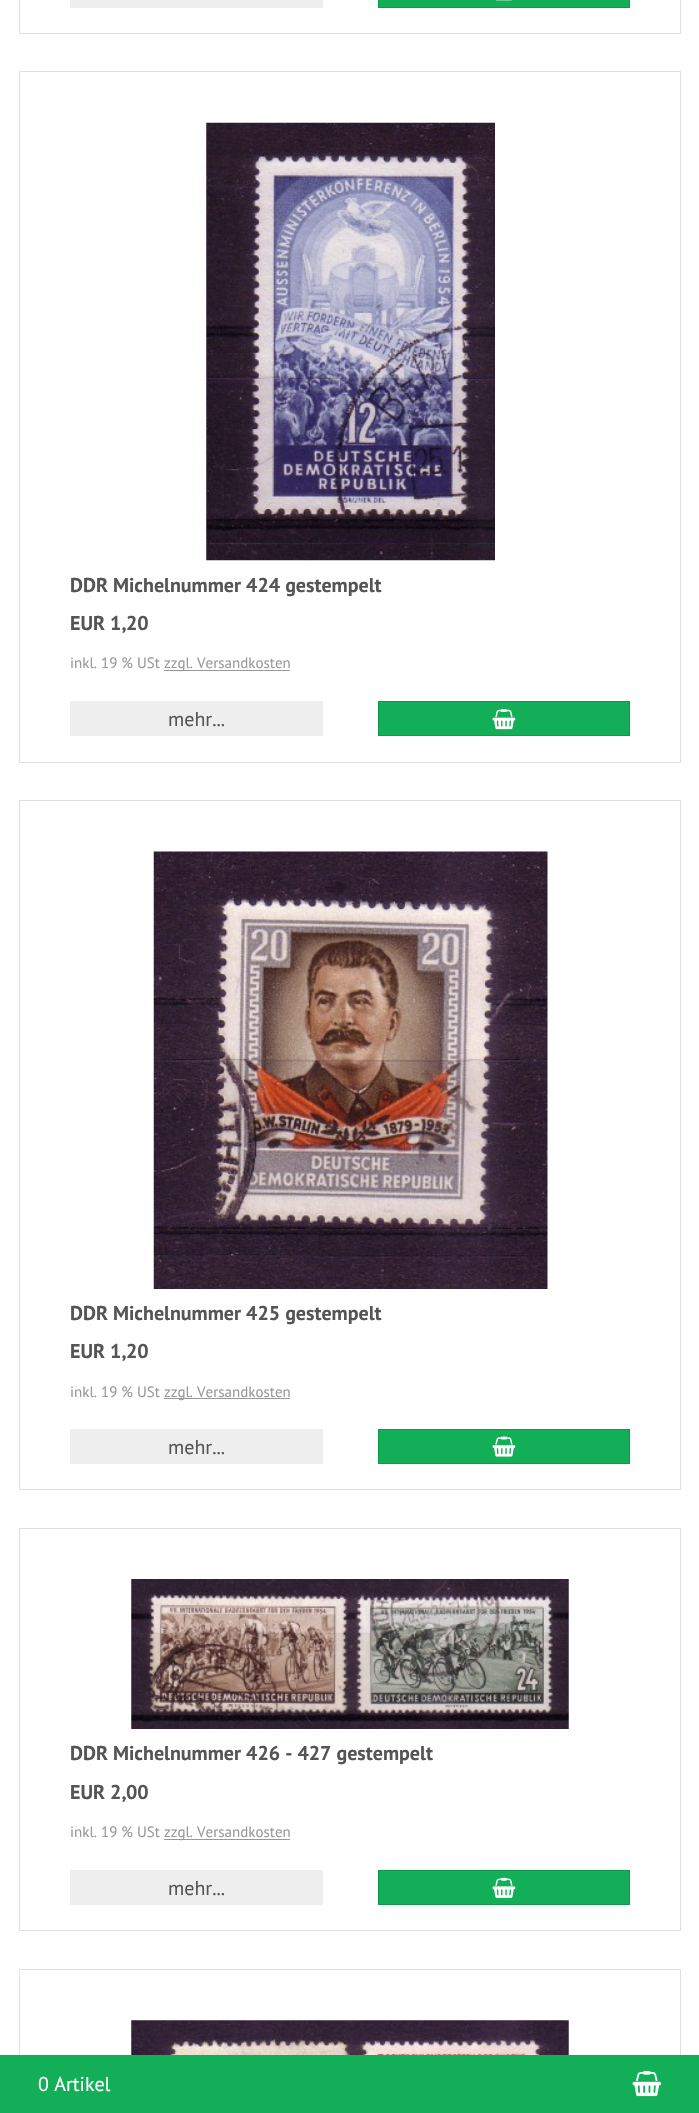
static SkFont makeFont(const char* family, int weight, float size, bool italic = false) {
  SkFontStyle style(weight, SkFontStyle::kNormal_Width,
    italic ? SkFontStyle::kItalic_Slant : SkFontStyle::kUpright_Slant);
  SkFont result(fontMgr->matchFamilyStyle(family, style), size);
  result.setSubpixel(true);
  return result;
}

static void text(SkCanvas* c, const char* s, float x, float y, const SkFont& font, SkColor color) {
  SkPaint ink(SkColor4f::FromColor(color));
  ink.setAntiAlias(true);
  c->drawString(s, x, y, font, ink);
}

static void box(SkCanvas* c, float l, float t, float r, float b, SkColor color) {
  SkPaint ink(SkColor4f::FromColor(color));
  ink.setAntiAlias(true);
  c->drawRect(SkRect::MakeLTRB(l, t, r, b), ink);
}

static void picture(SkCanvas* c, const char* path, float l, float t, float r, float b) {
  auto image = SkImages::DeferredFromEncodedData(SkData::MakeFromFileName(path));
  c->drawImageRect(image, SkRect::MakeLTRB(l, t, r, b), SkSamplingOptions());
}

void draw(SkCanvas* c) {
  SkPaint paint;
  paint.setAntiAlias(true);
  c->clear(0xffffffff);
  paint.setStyle(SkPaint::kStroke_Style);
  paint.setStrokeWidth(1);
  paint.setColor(0xffe0e0e0);
  c->drawRect(SkRect::MakeLTRB(19.5f, -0.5f, 680.5f, 33.5f), paint);
  box(c, 70, 0, 323, 8, 0xffeeeeee);
  paint.setStyle(SkPaint::kFill_Style);
  paint.setColor(0xff13ae58);
  c->drawRect(SkRect::MakeLTRB(378.5f, -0.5f, 629.5f, 7.5f), paint);
  paint.setStyle(SkPaint::kStroke_Style);
  paint.setColor(0xff10974c);
  c->drawRect(SkRect::MakeLTRB(378.5f, -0.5f, 629.5f, 7.5f), paint);
  picture(c, "img_01.png", 496, 0, 512, 1);
  paint.setColor(0xffe0e0e0);
  c->drawRect(SkRect::MakeLTRB(19.5f, 71.5f, 680.5f, 762.5f), paint);
  picture(c, "img_02.png", 206, 122, 495, 561);
  SkFont face1 = makeFont("PT Sans", 700, 20);
  text(c, "DDR Michelnummer 424 gestempelt", 70, 592, face1, 0xff555555);
  text(c, "EUR 1,20", 70, 630, face1, 0xff555555);
  SkFont face2 = makeFont("PT Sans", 400, 15);
  text(c, "inkl. 19 % USt", 70, 668, face2, 0xff999999);
  box(c, 164, 670, 290, 671, 0xff999999);
  text(c, "zzgl. Versandkosten", 164, 668, face2, 0xff999999);
  box(c, 70, 701, 323, 736, 0xffeeeeee);
  SkFont face3 = makeFont("PT Sans", 400, 20);
  text(c, "mehr...", 168, 726, face3, 0xff555555);
  paint.setStyle(SkPaint::kFill_Style);
  paint.setColor(0xff13ae58);
  c->drawRect(SkRect::MakeLTRB(378.5f, 701.5f, 629.5f, 735.5f), paint);
  paint.setStyle(SkPaint::kStroke_Style);
  paint.setColor(0xff10974c);
  c->drawRect(SkRect::MakeLTRB(378.5f, 701.5f, 629.5f, 735.5f), paint);
  picture(c, "img_03.png", 492, 709, 516, 730);
  paint.setColor(0xffe0e0e0);
  c->drawRect(SkRect::MakeLTRB(19.5f, 800.5f, 680.5f, 1489.5f), paint);
  picture(c, "img_04.png", 153, 851, 548, 1289);
  text(c, "DDR Michelnummer 425 gestempelt", 70, 1320, face1, 0xff555555);
  text(c, "EUR 1,20", 70, 1358, face1, 0xff555555);
  text(c, "inkl. 19 % USt", 70, 1397, face2, 0xff999999);
  box(c, 164, 1398, 290, 1399, 0xff999999);
  text(c, "zzgl. Versandkosten", 164, 1397, face2, 0xff999999);
  box(c, 70, 1429, 323, 1464, 0xffeeeeee);
  text(c, "mehr...", 168, 1454, face3, 0xff555555);
  paint.setStyle(SkPaint::kFill_Style);
  paint.setColor(0xff13ae58);
  c->drawRect(SkRect::MakeLTRB(378.5f, 1429.5f, 629.5f, 1463.5f), paint);
  paint.setStyle(SkPaint::kStroke_Style);
  paint.setColor(0xff10974c);
  c->drawRect(SkRect::MakeLTRB(378.5f, 1429.5f, 629.5f, 1463.5f), paint);
  picture(c, "img_05.png", 492, 1436, 516, 1457);
  paint.setColor(0xffe0e0e0);
  c->drawRect(SkRect::MakeLTRB(19.5f, 1528.5f, 680.5f, 1930.5f), paint);
  picture(c, "img_06.png", 131, 1579, 569, 1729);
  text(c, "DDR Michelnummer 426 - 427 gestempelt", 70, 1760, face1, 0xff555555);
  text(c, "EUR 2,00", 70, 1799, face1, 0xff555555);
  text(c, "inkl. 19 % USt", 70, 1837, face2, 0xff999999);
  box(c, 164, 1839, 290, 1840, 0xff999999);
  text(c, "zzgl. Versandkosten", 164, 1837, face2, 0xff999999);
  box(c, 70, 1870, 323, 1905, 0xffeeeeee);
  text(c, "mehr...", 168, 1895, face3, 0xff555555);
  paint.setStyle(SkPaint::kFill_Style);
  paint.setColor(0xff13ae58);
  c->drawRect(SkRect::MakeLTRB(378.5f, 1870.5f, 629.5f, 1904.5f), paint);
  paint.setStyle(SkPaint::kStroke_Style);
  paint.setColor(0xff10974c);
  c->drawRect(SkRect::MakeLTRB(378.5f, 1870.5f, 629.5f, 1904.5f), paint);
  picture(c, "img_07.png", 492, 1877, 516, 1898);
  paint.setColor(0xffe0e0e0);
  c->drawRect(SkRect::MakeLTRB(19.5f, 1969.5f, 680.5f, 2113.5f), paint);
  picture(c, "img_08.png", 131, 2020, 569, 2055);
  box(c, 0, 2055, 699, 2113, 0xff13ae58);
  text(c, "0 Artikel", 38, 2091, face3, 0xffffffff);
  picture(c, "img_09.png", 632, 2071, 662, 2097);
}
